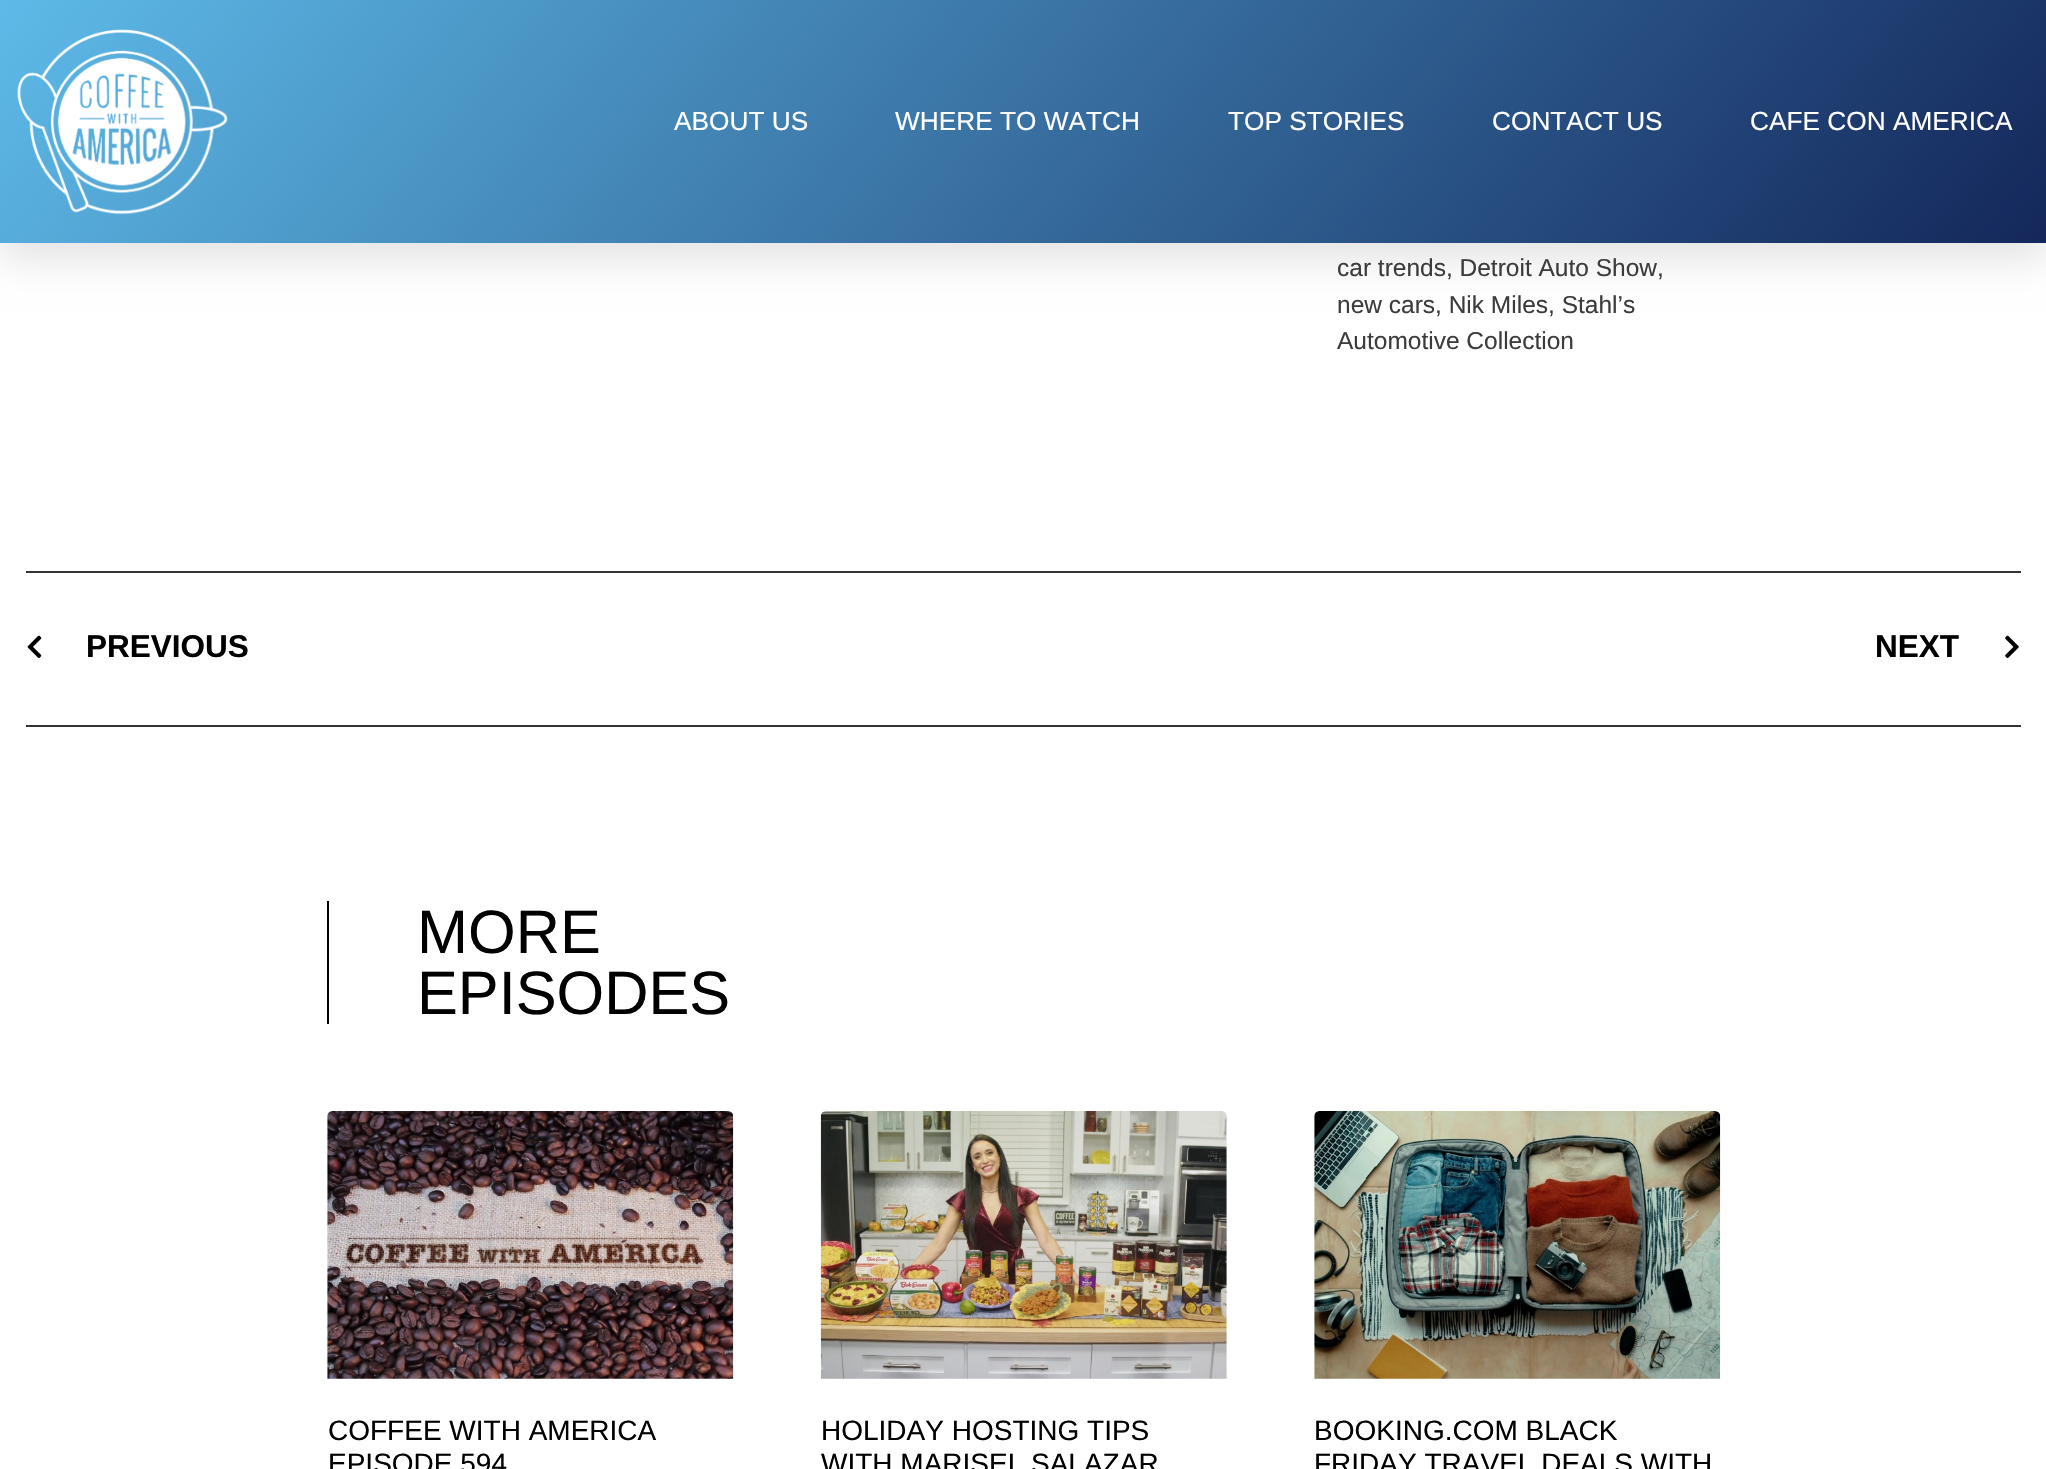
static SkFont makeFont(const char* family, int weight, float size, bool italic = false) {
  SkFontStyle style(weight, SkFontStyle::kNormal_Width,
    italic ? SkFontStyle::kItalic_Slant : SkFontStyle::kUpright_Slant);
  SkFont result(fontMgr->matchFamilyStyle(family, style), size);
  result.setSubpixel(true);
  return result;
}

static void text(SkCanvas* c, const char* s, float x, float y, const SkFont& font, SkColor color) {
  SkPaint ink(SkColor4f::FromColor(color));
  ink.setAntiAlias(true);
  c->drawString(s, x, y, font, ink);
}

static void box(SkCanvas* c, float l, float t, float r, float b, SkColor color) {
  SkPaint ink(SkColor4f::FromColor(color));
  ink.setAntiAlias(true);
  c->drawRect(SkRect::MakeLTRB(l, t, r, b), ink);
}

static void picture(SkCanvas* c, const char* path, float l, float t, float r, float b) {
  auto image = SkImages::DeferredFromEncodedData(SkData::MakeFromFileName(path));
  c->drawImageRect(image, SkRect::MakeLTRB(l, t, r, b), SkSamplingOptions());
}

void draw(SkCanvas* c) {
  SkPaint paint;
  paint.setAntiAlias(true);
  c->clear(0xffffffff);
  paint.setColor(0x1a000000);
  paint.setMaskFilter(SkMaskFilter::MakeBlur(kNormal_SkBlurStyle, 17.5f));
  c->drawRect(SkRect::MakeLTRB(0, 18, 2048, 261), paint);
  paint.setMaskFilter(nullptr);
  {
    const SkColor colors[] = {0xff5dbae8, 0xff14275b};
    const float stops[] = {0, 1};
    const SkPoint ends[] = {{363, -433}, {1684, 676}};
    paint.setShader(SkGradientShader::MakeLinear(ends, colors, stops, 2, SkTileMode::kClamp));
    paint.setAlpha(255);
  }
  c->drawRect(SkRect::MakeLTRB(0, 0, 2046, 243), paint);
  picture(c, "img_01.png", 17, 29, 228, 215);
  SkFont face1 = makeFont("Liberation Sans", 400, 26.25f);
  text(c, "ABOUT US", 674, 130, face1, 0xffffffff);
  text(c, "WHERE TO WATCH", 895, 130, face1, 0xffffffff);
  text(c, "TOP STORIES", 1228, 130, face1, 0xffffffff);
  text(c, "CONTACT US", 1492, 130, face1, 0xffffffff);
  text(c, "CAFE CON AMERICA", 1750, 130, face1, 0xffffffff);
  SkFont face2 = makeFont("Liberation Sans", 400, 24.5f);
  text(c, "car trends, Detroit Auto Show,", 1337, 276, face2, 0xff3c3c3c);
  text(c, "new cars, Nik Miles, Stahl’s", 1337, 313, face2, 0xff3c3c3c);
  text(c, "Automotive Collection", 1337, 349, face2, 0xff3c3c3c);
  box(c, 26, 571, 2021, 573, 0xff333333);
  box(c, 26, 725, 2021, 727, 0xff333333);
  picture(c, "img_02.png", 27, 635, 42, 658);
  SkFont face3 = makeFont("Liberation Sans", 700, 31.5f);
  text(c, "PREVIOUS", 86, 657, face3, 0xff000000);
  text(c, "NEXT", 1875, 657, face3, 0xff000000);
  picture(c, "img_03.png", 2005, 635, 2019, 658);
  box(c, 327, 901, 329, 1024, 0xff000000);
  SkFont face4 = makeFont("Liberation Sans", 400, 61.25f);
  text(c, "MORE", 417, 953, face4, 0xff000000);
  text(c, "EPISODES", 417, 1014, face4, 0xff000000);
  picture(c, "img_04.png", 327, 1111, 734, 1379);
  SkFont face5 = makeFont("Liberation Sans", 400, 28);
  text(c, "COFFEE WITH AMERICA", 328, 1440, face5, 0xff000000);
  text(c, "EPISODE 594", 328, 1473, face5, 0xff000000);
  picture(c, "img_05.png", 820, 1111, 1227, 1379);
  text(c, "HOLIDAY HOSTING TIPS", 821, 1440, face5, 0xff000000);
  text(c, "WITH MARISEL SALAZAR", 821, 1473, face5, 0xff000000);
  picture(c, "img_06.png", 1314, 1111, 1721, 1379);
  text(c, "BOOKING.COM BLACK", 1314, 1440, face5, 0xff000000);
  text(c, "FRIDAY TRAVEL DEALS WITH", 1314, 1473, face5, 0xff000000);
}
